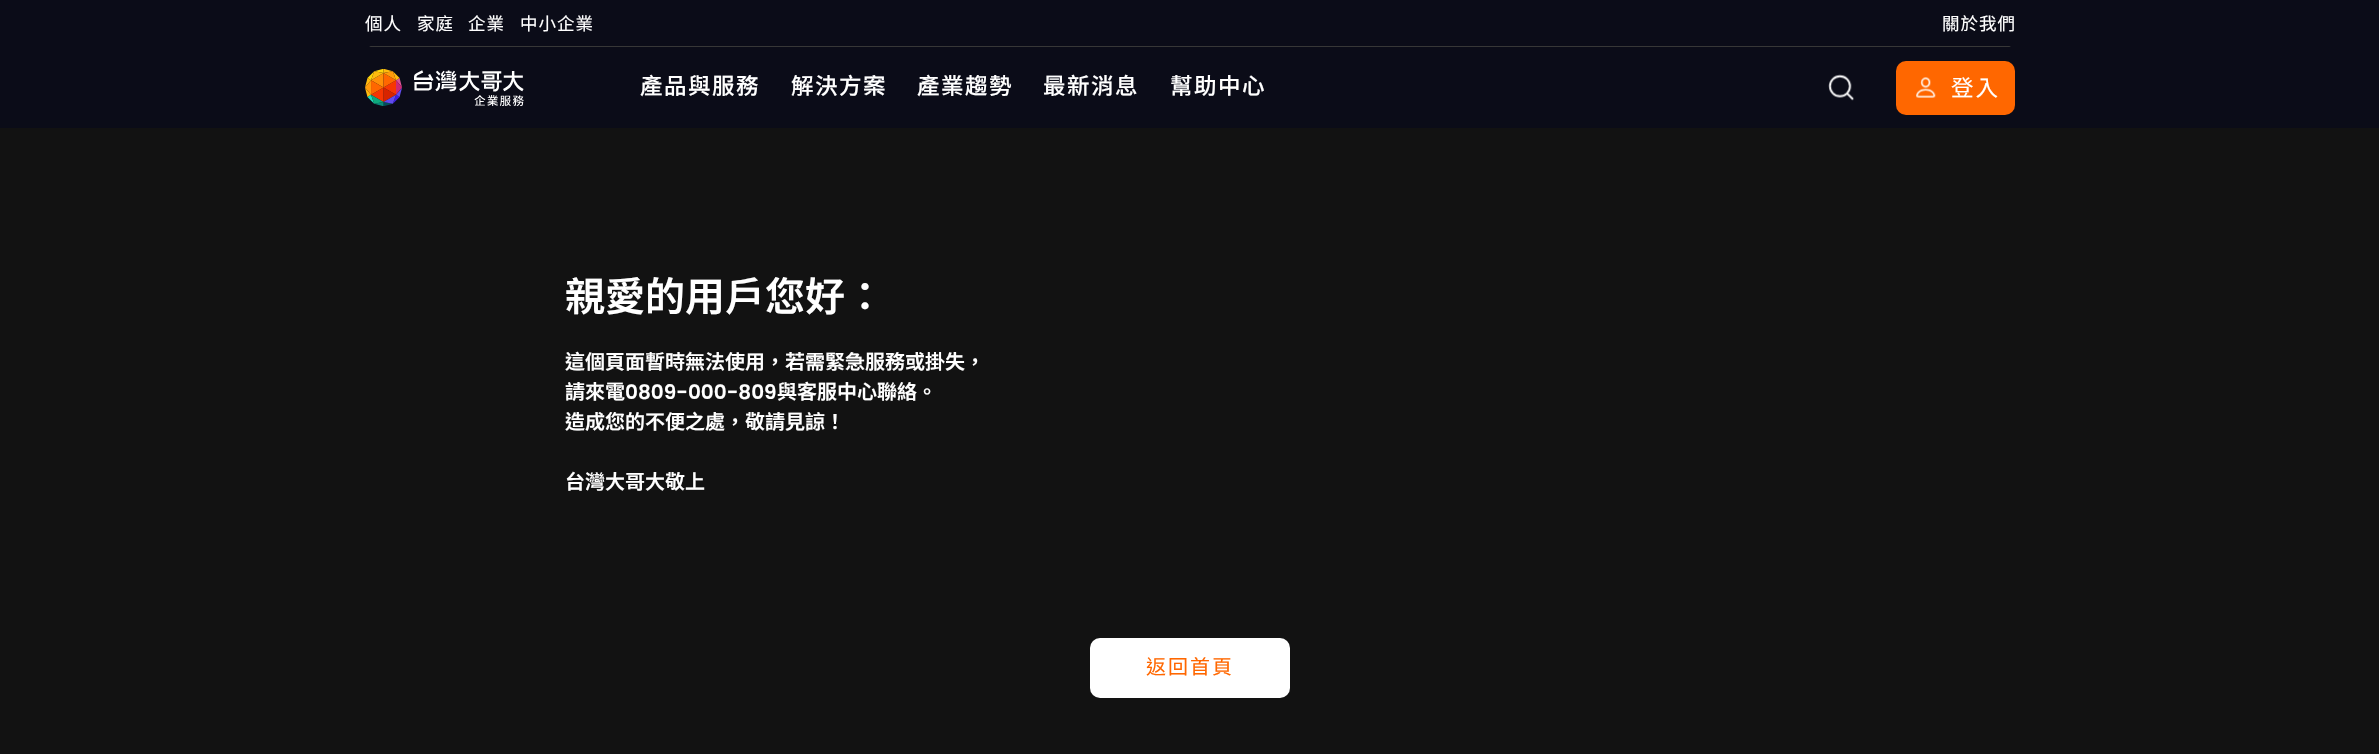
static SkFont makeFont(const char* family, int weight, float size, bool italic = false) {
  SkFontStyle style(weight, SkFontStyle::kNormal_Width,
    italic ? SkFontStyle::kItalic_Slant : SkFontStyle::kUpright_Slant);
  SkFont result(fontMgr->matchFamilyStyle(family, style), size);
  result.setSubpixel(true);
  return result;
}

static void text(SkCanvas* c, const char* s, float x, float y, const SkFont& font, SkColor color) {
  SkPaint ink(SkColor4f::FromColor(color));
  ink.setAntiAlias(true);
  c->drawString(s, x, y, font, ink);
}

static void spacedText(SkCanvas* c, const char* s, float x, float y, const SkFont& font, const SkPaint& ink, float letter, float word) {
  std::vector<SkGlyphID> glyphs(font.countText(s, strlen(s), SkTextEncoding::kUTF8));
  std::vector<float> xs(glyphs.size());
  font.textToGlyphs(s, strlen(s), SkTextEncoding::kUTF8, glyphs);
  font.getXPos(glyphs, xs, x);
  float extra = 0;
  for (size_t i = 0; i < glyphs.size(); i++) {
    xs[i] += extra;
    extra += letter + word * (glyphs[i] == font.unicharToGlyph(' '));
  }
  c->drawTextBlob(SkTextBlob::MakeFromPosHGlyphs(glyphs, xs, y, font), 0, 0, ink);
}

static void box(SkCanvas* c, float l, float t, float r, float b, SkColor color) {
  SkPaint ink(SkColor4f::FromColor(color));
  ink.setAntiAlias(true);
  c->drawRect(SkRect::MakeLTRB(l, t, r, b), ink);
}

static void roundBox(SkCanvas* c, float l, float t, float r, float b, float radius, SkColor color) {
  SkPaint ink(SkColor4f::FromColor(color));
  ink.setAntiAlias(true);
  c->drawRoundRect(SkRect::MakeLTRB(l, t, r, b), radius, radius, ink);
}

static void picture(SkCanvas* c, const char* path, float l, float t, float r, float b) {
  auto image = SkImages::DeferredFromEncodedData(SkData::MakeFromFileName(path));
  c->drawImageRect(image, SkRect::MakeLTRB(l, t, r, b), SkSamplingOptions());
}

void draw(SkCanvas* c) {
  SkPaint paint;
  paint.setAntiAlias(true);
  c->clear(0xff121212);
  box(c, 0, 0, 2379, 128, 0xff0b0c18);
  SkFont face1 = makeFont("Noto Sans TC", 400, 17.5f);
  paint.setColor(0xffffffff);
  spacedText(c, "個人", 365, 30, face1, paint, 1, 0);
  spacedText(c, "家庭", 417, 30, face1, paint, 1, 0);
  spacedText(c, "企業", 468, 30, face1, paint, 1, 0);
  spacedText(c, "中小企業", 520, 30, face1, paint, 1, 0);
  spacedText(c, "關於我們", 1942, 30, face1, paint, 1, 0);
  c->save();
  c->clipPath(SkPathBuilder().moveTo(375, 0).lineTo(2005, 0).cubicTo(2010.5f, 0, 2015, 4.5f, 2015, 10).lineTo(2015, 38).cubicTo(2015, 43.5f, 2010.5f, 48, 2005, 48).lineTo(375, 48).cubicTo(369.5f, 48, 365, 43.5f, 365, 38).lineTo(365, 10).cubicTo(365, 4.5f, 369.5f, 0, 375, 0).close().detach(), true);
  box(c, 365, 46, 2015, 47, 0xff373737);
  c->restore();
  picture(c, "img_01.png", 365, 69, 524, 106);
  picture(c, "img_02.png", 1828, 74, 1854, 101);
  roundBox(c, 1896, 61, 2015, 115, 10, 0xffff6700);
  picture(c, "img_03.png", 1916, 77, 1936, 98);
  SkFont face2 = makeFont("Noto Sans TC", 400, 22.5f);
  spacedText(c, "登入", 1951, 96, face2, paint, 2, 0);
  SkFont face3 = makeFont("Noto Sans TC", 500, 22.5f);
  spacedText(c, "產品與服務", 640, 94, face3, paint, 1.5f, 0);
  spacedText(c, "解決方案", 791, 94, face3, paint, 1.5f, 0);
  spacedText(c, "產業趨勢", 917, 94, face3, paint, 1.5f, 0);
  spacedText(c, "最新消息", 1043, 94, face3, paint, 1.5f, 0);
  spacedText(c, "幫助中心", 1170, 94, face3, paint, 1.5f, 0);
  SkFont face4 = makeFont("Noto Sans TC", 600, 40);
  text(c, "親愛的用戶您好：", 565, 311, face4, 0xffffffff);
  SkFont face5 = makeFont("Noto Sans TC", 600, 20);
  text(c, "這個頁面暫時無法使用，若需緊急服務或掛失，", 565, 369, face5, 0xffffffff);
  text(c, "請來電", 565, 399, face5, 0xffffffff);
  SkFont face6 = makeFont("Poppins", 600, 20);
  text(c, "0809-000-809", 625, 399, face6, 0xffffffff);
  text(c, "與客服中心聯絡。", 777, 399, face5, 0xffffffff);
  text(c, "造成您的不便之處，敬請見諒！", 565, 429, face5, 0xffffffff);
  text(c, "台灣大哥大敬上", 565, 489, face5, 0xffffffff);
  roundBox(c, 1090, 638, 1290, 698, 10, 0xffffffff);
  SkFont face7 = makeFont("Noto Sans TC", 400, 20);
  paint.setColor(0xffff6700);
  spacedText(c, "返回首頁", 1146, 674, face7, paint, 2, 0);
}
